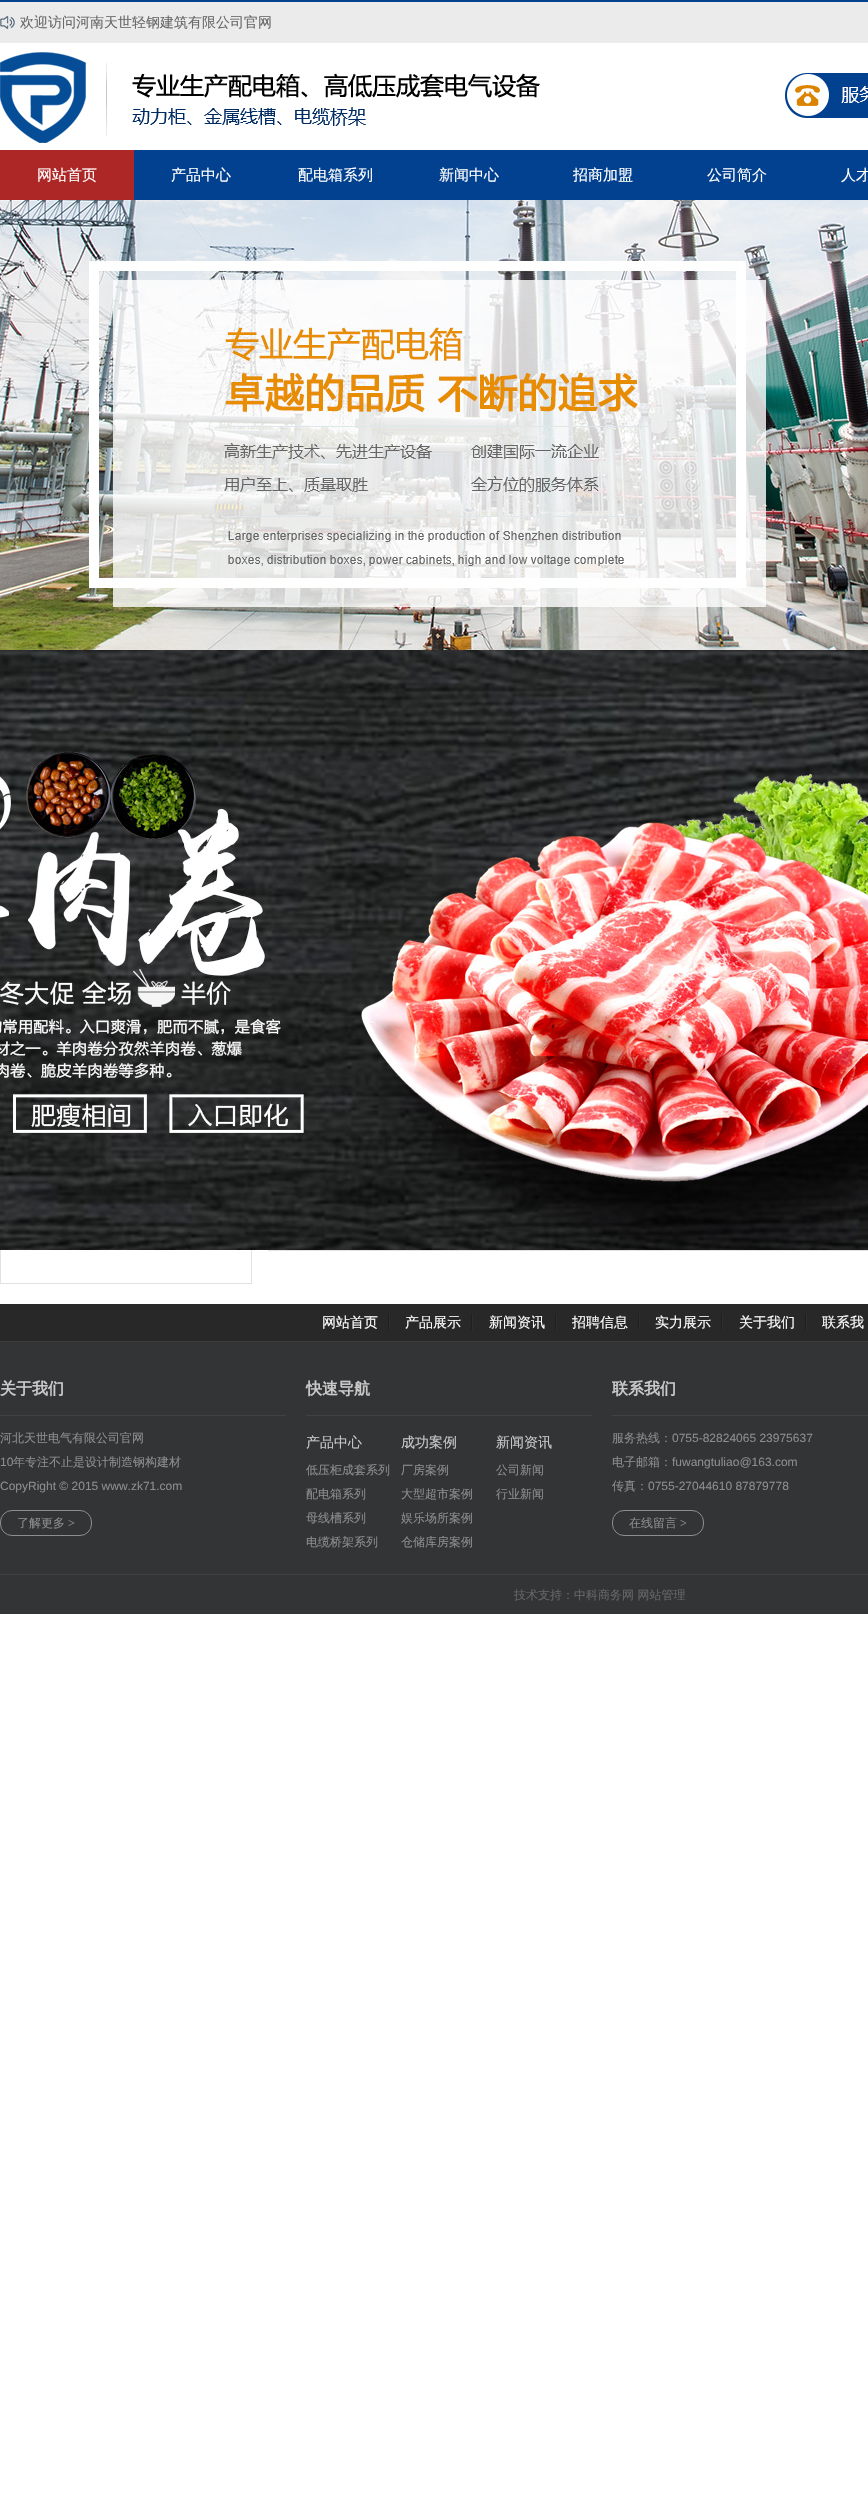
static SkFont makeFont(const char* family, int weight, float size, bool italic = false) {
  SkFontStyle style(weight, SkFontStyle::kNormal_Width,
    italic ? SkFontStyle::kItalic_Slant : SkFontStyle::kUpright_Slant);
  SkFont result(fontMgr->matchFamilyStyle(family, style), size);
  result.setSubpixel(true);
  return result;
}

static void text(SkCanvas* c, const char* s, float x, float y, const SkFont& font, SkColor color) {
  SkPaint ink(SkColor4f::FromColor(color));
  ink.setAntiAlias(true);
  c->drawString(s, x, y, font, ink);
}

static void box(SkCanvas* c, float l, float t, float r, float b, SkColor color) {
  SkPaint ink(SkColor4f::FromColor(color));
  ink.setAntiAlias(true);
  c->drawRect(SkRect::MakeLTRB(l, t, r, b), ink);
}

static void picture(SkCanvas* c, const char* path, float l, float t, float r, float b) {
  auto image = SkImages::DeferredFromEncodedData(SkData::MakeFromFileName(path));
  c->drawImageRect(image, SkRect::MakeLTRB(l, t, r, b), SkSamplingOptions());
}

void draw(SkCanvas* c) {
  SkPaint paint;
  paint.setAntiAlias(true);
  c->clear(0xffffffff);
  box(c, 0, 2, 868, 42, 0xffebebeb);
  box(c, 0, 0, 868, 2, 0xff00428e);
  box(c, 0, 42, 868, 43, 0xffeaeef1);
  picture(c, "img_01.png", 0, 16, 15, 29);
  SkFont face1 = makeFont("WenQuanYi Zen Hei", 500, 14);
  text(c, "欢迎访问河南天世轻钢建筑有限公司官网", 20, 27, face1, 0xff666666);
  picture(c, "img_02.png", 0, 52, 540, 143);
  picture(c, "img_03.png", 785, 73, 868, 118);
  box(c, 134, 150, 868, 200, 0xff024190);
  box(c, 0, 150, 134, 200, 0xffad2726);
  SkFont face2 = makeFont("WenQuanYi Zen Hei", 500, 15);
  text(c, "网站首页", 37, 180, face2, 0xffffffff);
  text(c, "产品中心", 171, 180, face2, 0xffffffff);
  text(c, "配电箱系列", 298, 180, face2, 0xffffffff);
  text(c, "新闻中心", 439, 180, face2, 0xffffffff);
  text(c, "招商加盟", 573, 180, face2, 0xffffffff);
  text(c, "公司简介", 707, 180, face2, 0xffffffff);
  text(c, "人才", 841, 180, face2, 0xffffffff);
  picture(c, "img_04.png", 0, 200, 868, 650);
  paint.setStyle(SkPaint::kStroke_Style);
  paint.setStrokeWidth(1);
  paint.setColor(0xffe2e2e2);
  c->drawRect(SkRect::MakeLTRB(0.5f, 662.5f, 251.5f, 1283.5f), paint);
  picture(c, "img_05.png", 0, 650, 868, 1250);
  box(c, 268, 1250, 868, 1251, 0xffe2e2e2);
  box(c, 0, 1342, 868, 1614, 0xff333436);
  box(c, 0, 1304, 868, 1341, 0xff282828);
  box(c, 0, 1341, 868, 1342, 0xff3d3d3d);
  text(c, "网站首页", 322, 1327, face1, 0xffffffff);
  picture(c, "img_06.png", 388, 1314, 390, 1330);
  text(c, "产品展示", 405, 1327, face1, 0xffffffff);
  picture(c, "img_06.png", 471, 1314, 473, 1330);
  text(c, "新闻资讯", 489, 1327, face1, 0xffffffff);
  picture(c, "img_06.png", 555, 1314, 557, 1330);
  text(c, "招聘信息", 572, 1327, face1, 0xffffffff);
  picture(c, "img_06.png", 638, 1314, 640, 1330);
  text(c, "实力展示", 655, 1327, face1, 0xffffffff);
  picture(c, "img_06.png", 721, 1314, 723, 1330);
  text(c, "关于我们", 739, 1327, face1, 0xffffffff);
  picture(c, "img_06.png", 805, 1314, 807, 1330);
  text(c, "联系我", 822, 1327, face1, 0xffffffff);
  box(c, 0, 1574, 868, 1575, 0xff3f4143);
  box(c, 0, 1415, 286, 1416, 0xff3f4143);
  SkFont face3 = makeFont("WenQuanYi Zen Hei", 700, 16);
  text(c, "关于我们", 0, 1394, face3, 0xffcac9c9);
  SkFont face4 = makeFont("WenQuanYi Zen Hei", 500, 12);
  text(c, "河北天世电气有限公司官网", 0, 1442, face4, 0xff8d8d8e);
  SkFont face5 = makeFont("Liberation Sans", 400, 12);
  text(c, "10", 0, 1466, face5, 0xff8d8d8e);
  text(c, "年专注不止是设计制造钢构建材", 13, 1466, face4, 0xff8d8d8e);
  text(c, "CopyRight © 2015 www.zk71.com", 0, 1490, face5, 0xff8d8d8e);
  paint.setColor(0xff8d8d8e);
  c->drawRoundRect(SkRect::MakeLTRB(0.5f, 1510.5f, 91.5f, 1535.5f), 11.5f, 11.5f, paint);
  text(c, "了解更多", 17, 1527, face4, 0xff8d8d8e);
  SkFont face6 = makeFont("Liberation Serif", 400, 12);
  text(c, ">", 68, 1527, face6, 0xff8d8d8e);
  box(c, 306, 1415, 592, 1416, 0xff3f4143);
  text(c, "快速导航", 306, 1394, face3, 0xffcac9c9);
  text(c, "产品中心", 306, 1447, face1, 0xffcac9c9);
  text(c, "低压柜成套系列", 306, 1474, face4, 0xff8d8d8e);
  text(c, "配电箱系列", 306, 1498, face4, 0xff8d8d8e);
  text(c, "母线槽系列", 306, 1522, face4, 0xff8d8d8e);
  text(c, "电缆桥架系列", 306, 1546, face4, 0xff8d8d8e);
  text(c, "成功案例", 401, 1447, face1, 0xffcac9c9);
  text(c, "厂房案例", 401, 1474, face4, 0xff8d8d8e);
  text(c, "大型超市案例", 401, 1498, face4, 0xff8d8d8e);
  text(c, "娱乐场所案例", 401, 1522, face4, 0xff8d8d8e);
  text(c, "仓储库房案例", 401, 1546, face4, 0xff8d8d8e);
  text(c, "新闻资讯", 496, 1447, face1, 0xffcac9c9);
  text(c, "公司新闻", 496, 1474, face4, 0xff8d8d8e);
  text(c, "行业新闻", 496, 1498, face4, 0xff8d8d8e);
  box(c, 612, 1415, 868, 1416, 0xff3f4143);
  text(c, "联系我们", 612, 1394, face3, 0xffcac9c9);
  text(c, "服务热线：", 612, 1442, face4, 0xff8d8d8e);
  text(c, "0755-82824065 23975637", 672, 1442, face5, 0xff8d8d8e);
  text(c, "电子邮箱：", 612, 1466, face4, 0xff8d8d8e);
  text(c, "fuwangtuliao@163.com", 672, 1466, face5, 0xff8d8d8e);
  text(c, "传真：", 612, 1490, face4, 0xff8d8d8e);
  text(c, "0755-27044610 87879778", 648, 1490, face5, 0xff8d8d8e);
  c->drawRoundRect(SkRect::MakeLTRB(612.5f, 1510.5f, 703.5f, 1535.5f), 11.5f, 11.5f, paint);
  text(c, "在线留言", 629, 1527, face4, 0xff8d8d8e);
  text(c, ">", 680, 1527, face6, 0xff8d8d8e);
  text(c, "技术支持：中科商务网 网站管理", 514, 1599, face4, 0xff666666);
}
